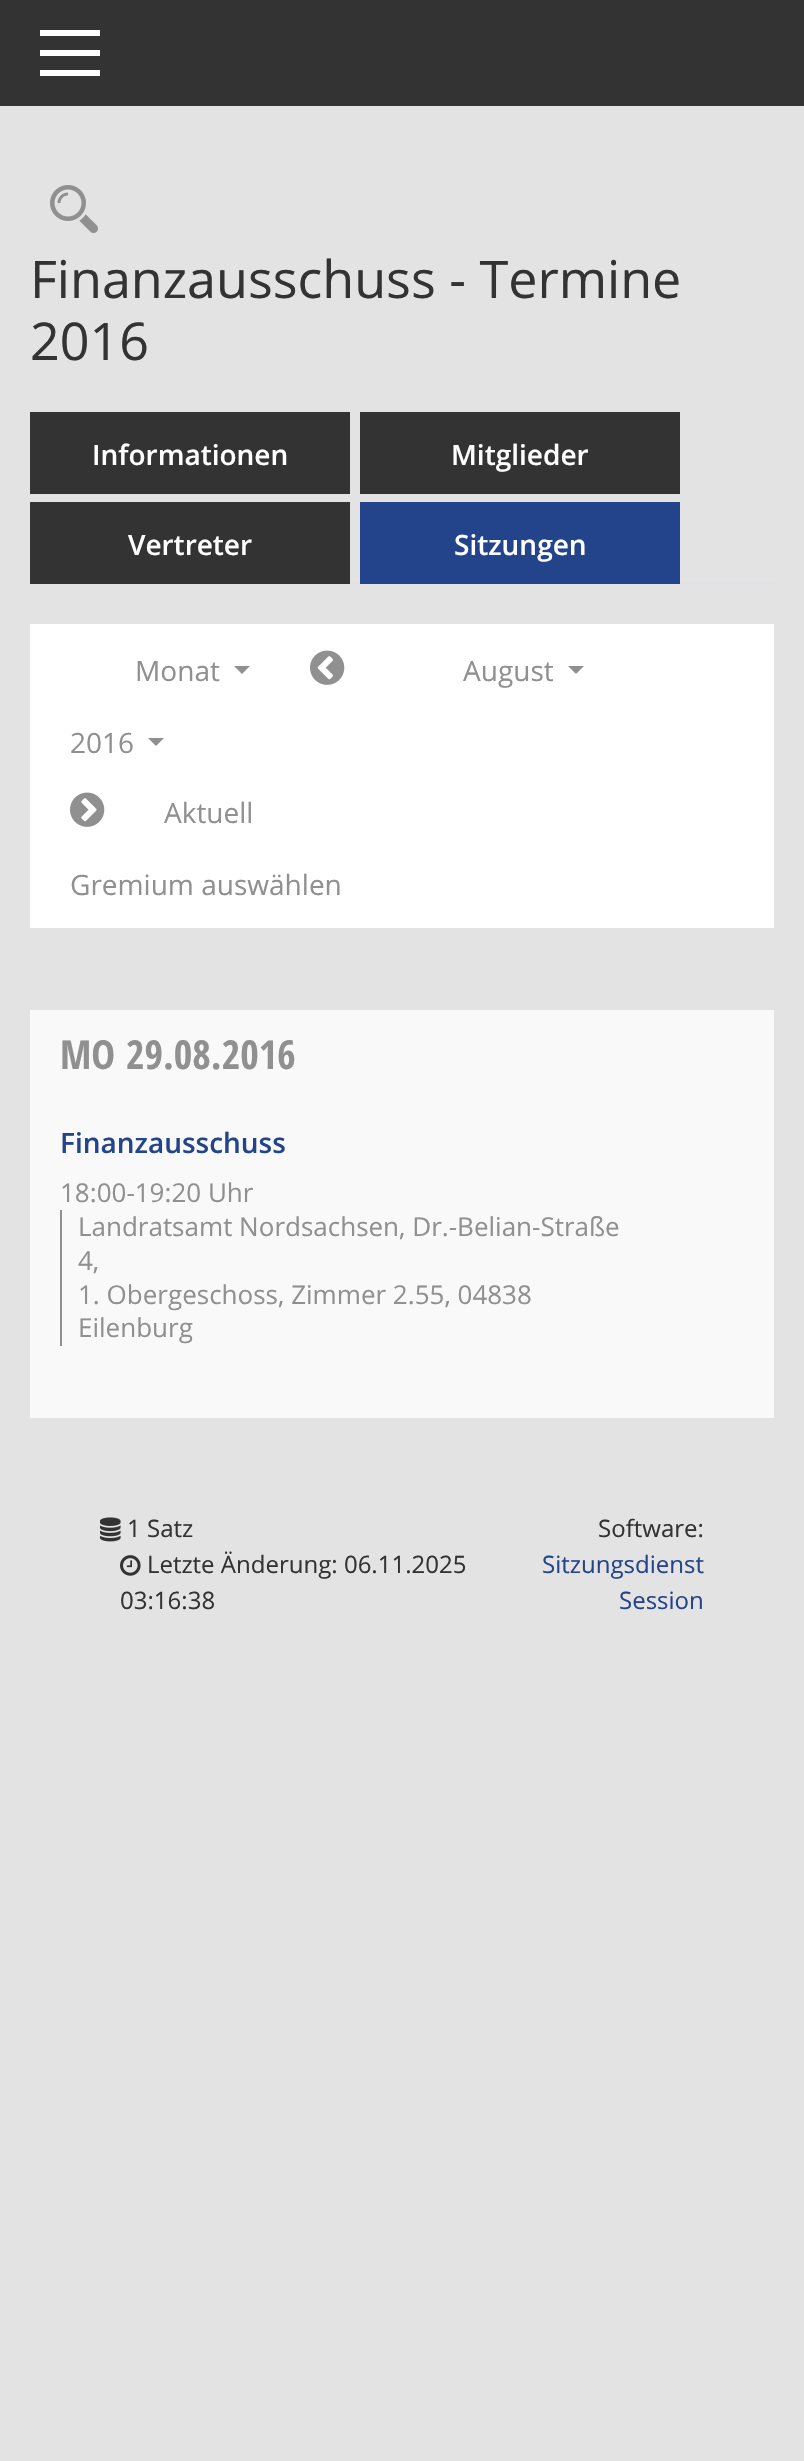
static SkFont makeFont(const char* family, int weight, float size, bool italic = false) {
  SkFontStyle style(weight, SkFontStyle::kNormal_Width,
    italic ? SkFontStyle::kItalic_Slant : SkFontStyle::kUpright_Slant);
  SkFont result(fontMgr->matchFamilyStyle(family, style), size);
  result.setSubpixel(true);
  return result;
}

static void text(SkCanvas* c, const char* s, float x, float y, const SkFont& font, SkColor color) {
  SkPaint ink(SkColor4f::FromColor(color));
  ink.setAntiAlias(true);
  c->drawString(s, x, y, font, ink);
}

static void box(SkCanvas* c, float l, float t, float r, float b, SkColor color) {
  SkPaint ink(SkColor4f::FromColor(color));
  ink.setAntiAlias(true);
  c->drawRect(SkRect::MakeLTRB(l, t, r, b), ink);
}

static void picture(SkCanvas* c, const char* path, float l, float t, float r, float b) {
  auto image = SkImages::DeferredFromEncodedData(SkData::MakeFromFileName(path));
  c->drawImageRect(image, SkRect::MakeLTRB(l, t, r, b), SkSamplingOptions());
}

void draw(SkCanvas* c) {
  SkPaint paint;
  paint.setAntiAlias(true);
  c->clear(0xffe3e3e3);
  box(c, 0, 0, 804, 106, 0xff333333);
  box(c, 40, 30, 100, 36, 0xffffffff);
  box(c, 40, 50, 100, 56, 0xffffffff);
  box(c, 40, 70, 100, 76, 0xffffffff);
  picture(c, "img_01.png", 50, 185, 98, 233);
  SkFont face1 = makeFont("Open Sans", 400, 52);
  text(c, "Finanzausschuss - Termine", 30, 298, face1, 0xff333333);
  text(c, "2016", 30, 360, face1, 0xff333333);
  box(c, 350, 582, 774, 584, 0xffdee2e6);
  box(c, 30, 412, 350, 494, 0xff333333);
  SkFont face2 = makeFont("Open Sans", 600, 28);
  text(c, "Informationen", 92, 465, face2, 0xffffffff);
  box(c, 360, 412, 680, 494, 0xff333333);
  text(c, "Mitglieder", 451, 465, face2, 0xffffffff);
  box(c, 30, 502, 350, 584, 0xff333333);
  text(c, "Vertreter", 128, 555, face2, 0xffffffff);
  box(c, 360, 502, 680, 584, 0xff23448a);
  text(c, "Sitzungen", 454, 555, face2, 0xffffffff);
  box(c, 30, 624, 774, 928, 0xffffffff);
  SkFont face3 = makeFont("Open Sans", 400, 28);
  text(c, "Monat", 135, 681, face3, 0xff909090);
  paint.setColor(0xff909090);
  c->drawPath(SkPathBuilder().moveTo(234, 666).lineTo(250, 666).lineTo(242, 674).close().detach(), paint);
  picture(c, "img_02.png", 310, 650, 345, 685);
  text(c, "August", 463, 681, face3, 0xff909090);
  c->drawPath(SkPathBuilder().moveTo(568, 666).lineTo(584, 666).lineTo(576, 674).close().detach(), paint);
  text(c, "2016", 70, 753, face3, 0xff909090);
  c->drawPath(SkPathBuilder().moveTo(148, 738).lineTo(164, 738).lineTo(156, 746).close().detach(), paint);
  picture(c, "img_03.png", 70, 792, 105, 827);
  text(c, "Aktuell", 164, 823, face3, 0xff909090);
  text(c, "Gremium auswählen", 70, 895, face3, 0xff909090);
  box(c, 30, 1010, 774, 1418, 0xfff9f9f9);
  SkFont face4 = makeFont("Open Sans Condensed", 700, 40);
  text(c, "MO", 60, 1069, face4, 0xff909090);
  text(c, "29.08.2016", 126, 1069, face4, 0xff909090);
  text(c, "Finanzausschuss", 60, 1153, face2, 0xff23448a);
  SkFont face5 = makeFont("Open Sans", 400, 26);
  text(c, "18:00-19:20 Uhr", 60, 1202, face5, 0xff909090);
  box(c, 60, 1210, 62, 1346, 0xff909090);
  text(c, "Landratsamt Nordsachsen, Dr.-Belian-Straße", 78, 1236, face5, 0xff909090);
  text(c, "4,", 78, 1270, face5, 0xff909090);
  text(c, "1. Obergeschoss, Zimmer 2.55, 04838", 78, 1304, face5, 0xff909090);
  text(c, "Eilenburg", 78, 1337, face5, 0xff909090);
  picture(c, "img_04.png", 100, 1517, 121, 1542);
  SkFont face6 = makeFont("Open Sans", 400, 24);
  text(c, "1 Satz", 127, 1537, face6, 0xff333333);
  picture(c, "img_05.png", 120, 1555, 141, 1576);
  text(c, "Letzte Änderung: 06.11.2025", 147, 1573, face6, 0xff333333);
  text(c, "03:16:38", 120, 1609, face6, 0xff333333);
  text(c, "Software:", 598, 1537, face6, 0xff333333);
  text(c, "Sitzungsdienst", 542, 1573, face6, 0xff23448a);
  text(c, "Session", 619, 1609, face6, 0xff23448a);
}
